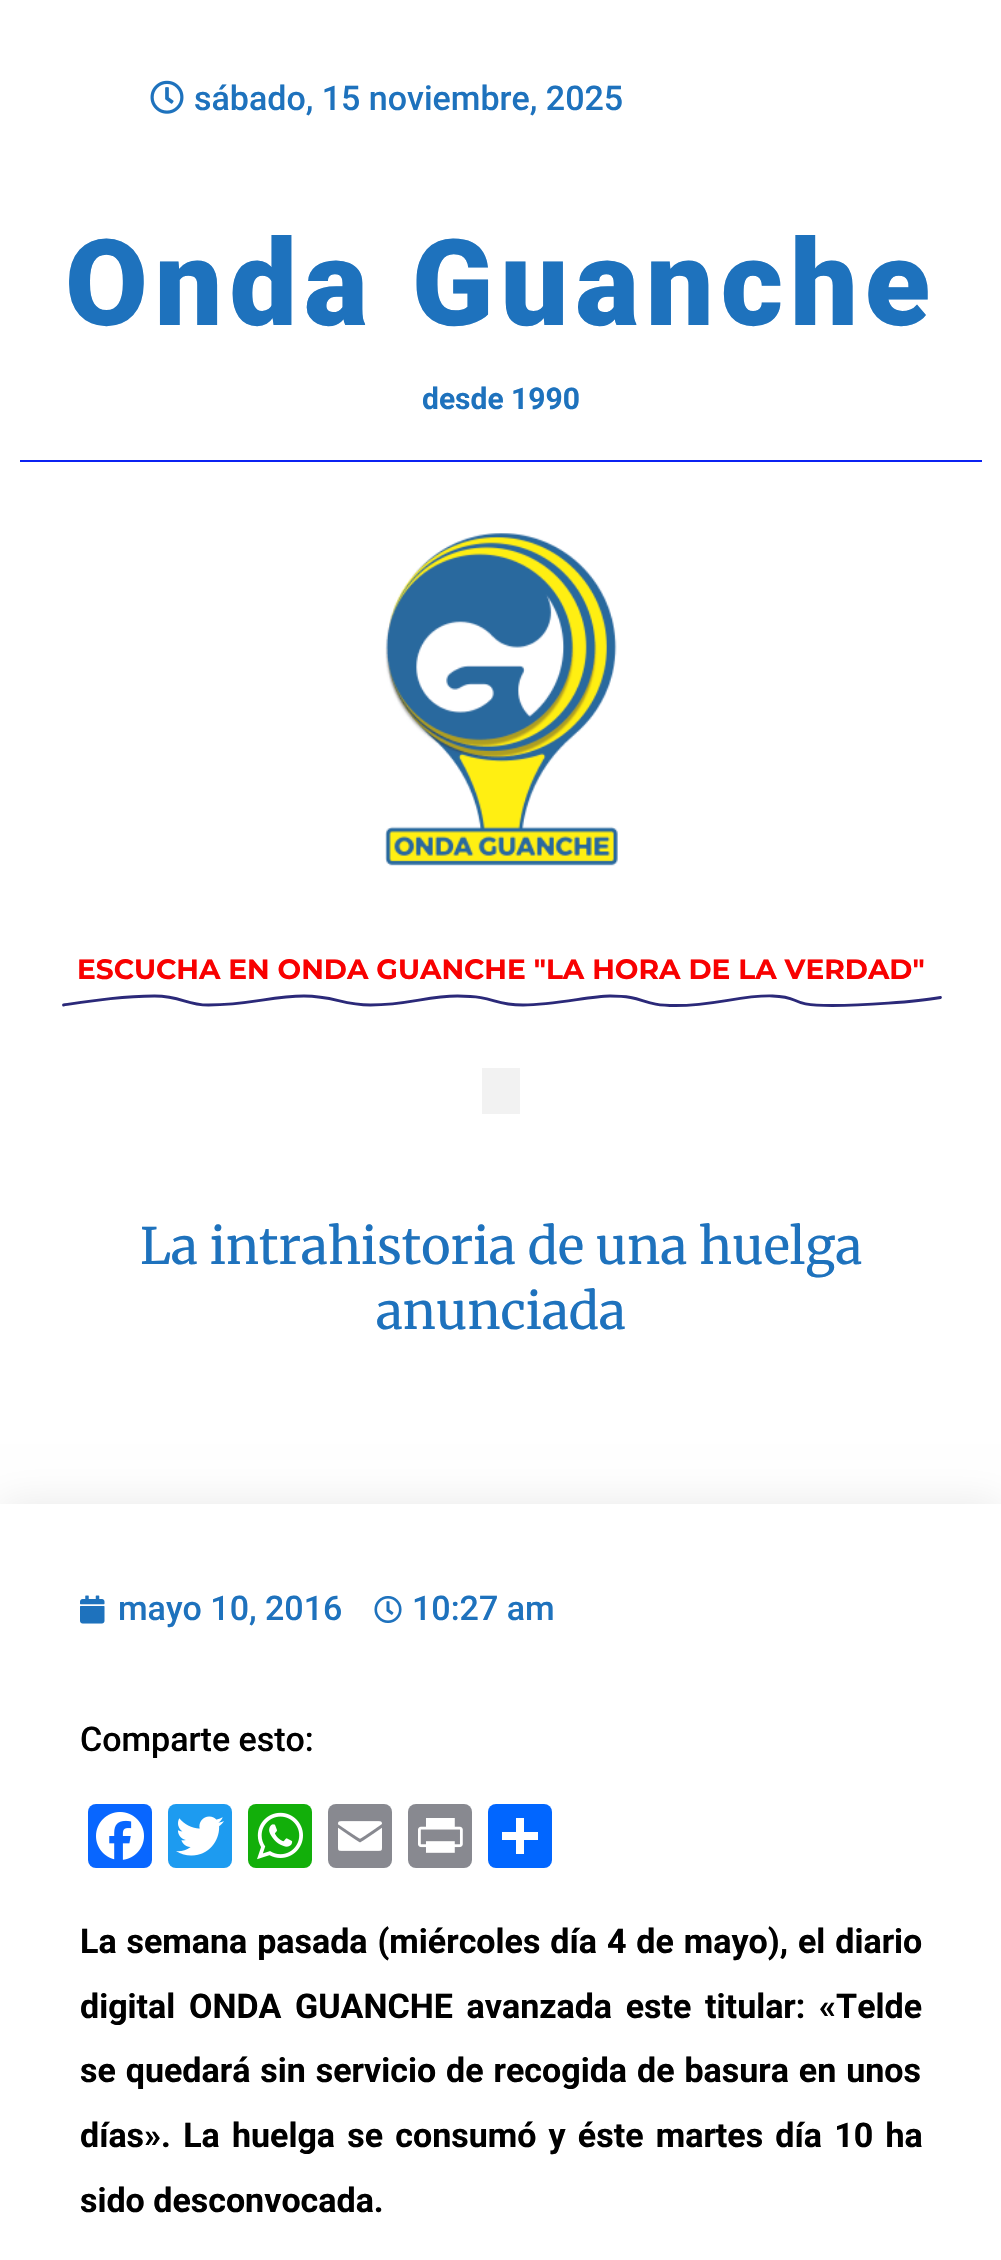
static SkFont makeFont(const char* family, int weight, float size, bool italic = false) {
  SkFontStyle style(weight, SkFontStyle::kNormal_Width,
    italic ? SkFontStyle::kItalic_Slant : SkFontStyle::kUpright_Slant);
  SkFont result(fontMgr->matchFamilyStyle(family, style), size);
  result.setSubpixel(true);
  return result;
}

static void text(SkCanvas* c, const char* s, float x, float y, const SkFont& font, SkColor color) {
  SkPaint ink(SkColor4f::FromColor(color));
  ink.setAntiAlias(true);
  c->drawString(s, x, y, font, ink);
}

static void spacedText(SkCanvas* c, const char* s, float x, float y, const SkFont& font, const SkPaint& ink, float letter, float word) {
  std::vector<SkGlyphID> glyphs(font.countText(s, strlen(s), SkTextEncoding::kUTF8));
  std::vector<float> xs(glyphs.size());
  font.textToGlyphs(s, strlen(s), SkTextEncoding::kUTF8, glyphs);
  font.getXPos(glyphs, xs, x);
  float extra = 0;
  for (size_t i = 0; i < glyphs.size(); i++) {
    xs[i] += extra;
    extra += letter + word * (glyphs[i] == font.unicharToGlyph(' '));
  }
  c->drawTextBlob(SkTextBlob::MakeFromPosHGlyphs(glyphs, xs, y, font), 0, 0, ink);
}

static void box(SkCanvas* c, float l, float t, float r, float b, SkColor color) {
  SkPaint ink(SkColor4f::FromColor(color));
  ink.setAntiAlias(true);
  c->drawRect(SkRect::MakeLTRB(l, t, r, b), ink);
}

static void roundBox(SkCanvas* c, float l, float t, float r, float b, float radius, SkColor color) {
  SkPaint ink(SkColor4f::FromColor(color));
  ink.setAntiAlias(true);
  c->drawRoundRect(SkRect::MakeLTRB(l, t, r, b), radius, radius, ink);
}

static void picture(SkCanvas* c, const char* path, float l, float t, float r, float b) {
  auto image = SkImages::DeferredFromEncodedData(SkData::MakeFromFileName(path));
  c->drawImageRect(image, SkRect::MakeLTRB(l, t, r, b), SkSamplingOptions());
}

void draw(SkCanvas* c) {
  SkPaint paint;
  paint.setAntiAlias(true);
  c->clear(0xffffffff);
  picture(c, "img_01.png", 150, 80, 184, 114);
  SkFont face1 = makeFont("Roboto", 500, 34);
  text(c, "sábado, 15 noviembre, 2025", 194, 110, face1, 0xff1e72bd);
  SkFont face2 = makeFont("Roboto", 900, 120);
  paint.setColor(0xff1e72bd);
  spacedText(c, "Onda Guanche", 65, 325, face2, paint, 7, 0);
  SkFont face3 = makeFont("Roboto", 700, 30);
  text(c, "desde 1990", 422, 409, face3, 0xff1e72bd);
  box(c, 20, 460, 982, 462, 0xff0b22f2);
  picture(c, "img_02.png", 385, 533, 618, 866);
  SkFont face4 = makeFont("Montserrat", 700, 28);
  text(c, "ESCUCHA EN ONDA GUANCHE \"LA HORA DE LA VERDAD\"", 77, 979, face4, 0xfff80101);
  paint.setStyle(SkPaint::kStroke_Style);
  paint.setStrokeWidth(2.8f);
  paint.setStrokeCap(SkPaint::kRound_Cap);
  paint.setStrokeJoin(SkPaint::kRound_Join);
  paint.setColor(0xff2b2979);
  c->drawPath(SkPathBuilder().moveTo(63.5f, 1005).cubicTo(94, 1000.5f, 123, 996, 154.5f, 996).cubicTo(182.5f, 996, 185, 1005, 208.5f, 1005).cubicTo(249, 1005, 272, 996, 304, 996).cubicTo(334.5f, 996, 342, 1005, 370.5f, 1005).cubicTo(408.5f, 1005, 427, 996, 457.5f, 996).cubicTo(497, 996, 491, 1005, 523, 1005).cubicTo(556.5f, 1005, 589.5f, 996, 610, 996).cubicTo(646, 996, 640.5f, 1005.5f, 675.5f, 1005.5f).cubicTo(716, 1005.5f, 740.5f, 995, 772.5f, 996).cubicTo(804, 997, 785, 1005.5f, 832, 1005.5f).cubicTo(862, 1005.5f, 915.5f, 1002, 940.5f, 997.5f).detach(), paint);
  box(c, 482, 1068, 520, 1114, 0xfff2f2f2);
  SkFont face5 = makeFont("Merriweather", 400, 50);
  text(c, "La intrahistoria de una huelga", 140, 1264, face5, 0xff1e72bd);
  text(c, "anunciada", 376, 1329, face5, 0xff1e72bd);
  paint.setStyle(SkPaint::kFill_Style);
  paint.setColor(0x17000000);
  paint.setMaskFilter(SkMaskFilter::MakeBlur(kNormal_SkBlurStyle, 20));
  c->drawRect(SkRect::MakeLTRB(0, 1504, 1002, 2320), paint);
  paint.setMaskFilter(nullptr);
  box(c, 0, 1504, 1001, 2260, 0xffffffff);
  picture(c, "img_03.png", 80, 1595, 105, 1624);
  text(c, "mayo 10, 2016", 118, 1620, face1, 0xff1e72bd);
  picture(c, "img_04.png", 374, 1596, 402, 1623);
  text(c, "10:27 am", 412, 1620, face1, 0xff1e72bd);
  text(c, "Comparte esto:", 80, 1751, face1, 0xff000000);
  roundBox(c, 88, 1804, 152, 1868, 8, 0xff0866ff);
  picture(c, "img_05.png", 96, 1812, 144, 1860);
  roundBox(c, 168, 1804, 232, 1868, 8, 0xff1d9bf0);
  picture(c, "img_06.png", 176, 1816, 224, 1856);
  roundBox(c, 248, 1804, 312, 1868, 8, 0xff12af0a);
  picture(c, "img_07.png", 257, 1812, 303, 1860);
  roundBox(c, 328, 1804, 392, 1868, 8, 0xff888990);
  picture(c, "img_08.png", 338, 1821, 382, 1851);
  roundBox(c, 408, 1804, 472, 1868, 8, 0xff888990);
  picture(c, "img_09.png", 418, 1818, 463, 1853);
  roundBox(c, 488, 1804, 552, 1868, 8, 0xff0166ff);
  box(c, 516, 1818, 524, 1854, 0xffffffff);
  box(c, 502, 1832, 538, 1840, 0xffffffff);
  SkFont face6 = makeFont("Roboto", 700, 34);
  paint.setColor(0xff000000);
  spacedText(c, "La semana pasada (miércoles día 4 de mayo), el diario", 80, 1953, face6, paint, 0, 1.5f);
  spacedText(c, "digital ONDA GUANCHE avanzada este titular: «Telde", 80, 2018, face6, paint, 0, 5.25f);
  spacedText(c, "se quedará sin servicio de recogida de basura en unos", 80, 2082, face6, paint, 0, 1.5f);
  spacedText(c, "días». La huelga se consumó y éste martes día 10 ha", 80, 2147, face6, paint, 0, 3.75f);
  text(c, "sido desconvocada.", 80, 2212, face6, 0xff000000);
}
